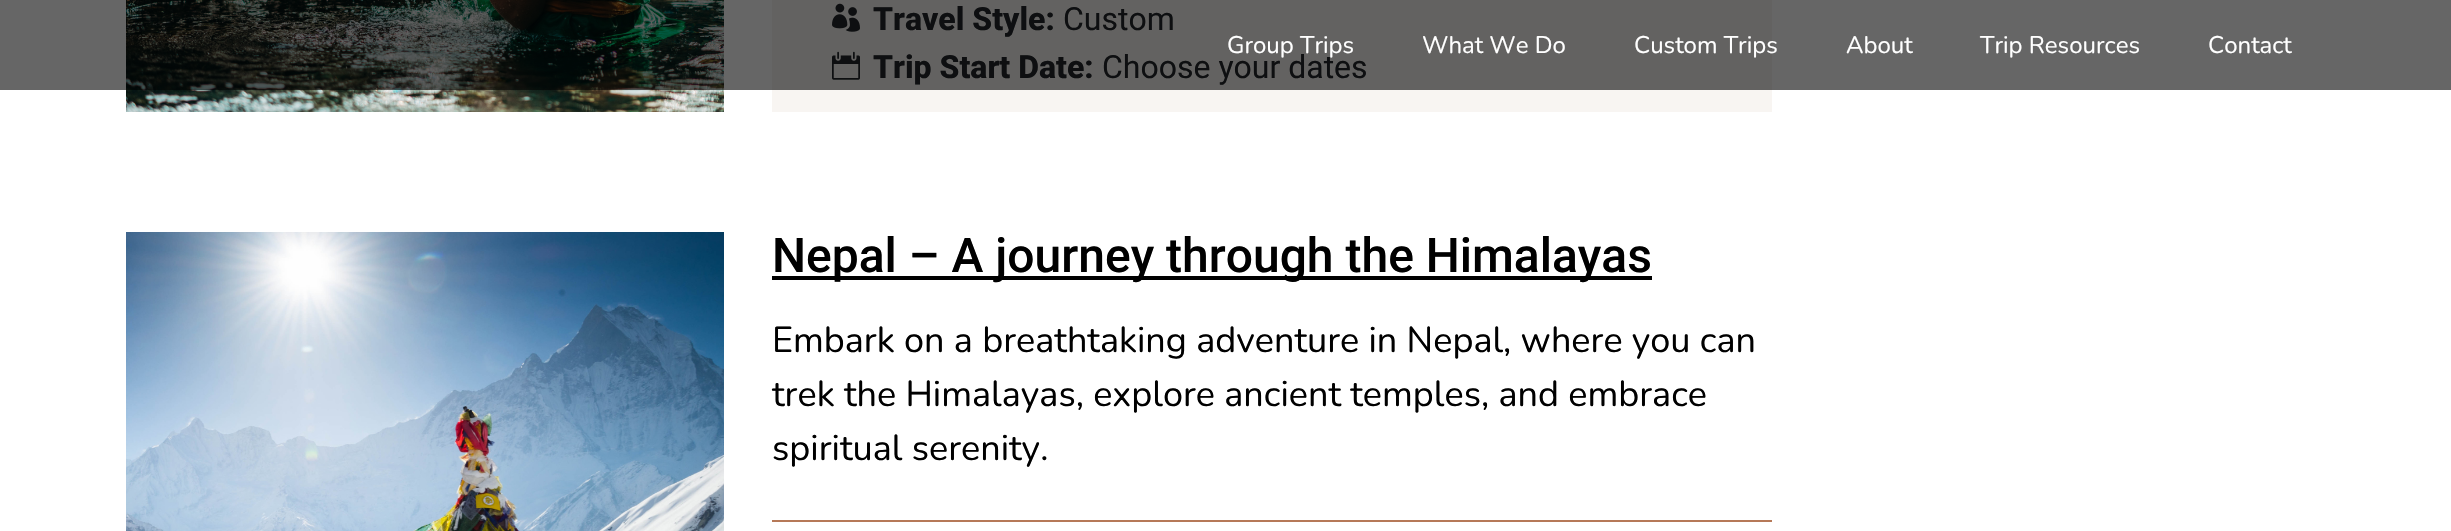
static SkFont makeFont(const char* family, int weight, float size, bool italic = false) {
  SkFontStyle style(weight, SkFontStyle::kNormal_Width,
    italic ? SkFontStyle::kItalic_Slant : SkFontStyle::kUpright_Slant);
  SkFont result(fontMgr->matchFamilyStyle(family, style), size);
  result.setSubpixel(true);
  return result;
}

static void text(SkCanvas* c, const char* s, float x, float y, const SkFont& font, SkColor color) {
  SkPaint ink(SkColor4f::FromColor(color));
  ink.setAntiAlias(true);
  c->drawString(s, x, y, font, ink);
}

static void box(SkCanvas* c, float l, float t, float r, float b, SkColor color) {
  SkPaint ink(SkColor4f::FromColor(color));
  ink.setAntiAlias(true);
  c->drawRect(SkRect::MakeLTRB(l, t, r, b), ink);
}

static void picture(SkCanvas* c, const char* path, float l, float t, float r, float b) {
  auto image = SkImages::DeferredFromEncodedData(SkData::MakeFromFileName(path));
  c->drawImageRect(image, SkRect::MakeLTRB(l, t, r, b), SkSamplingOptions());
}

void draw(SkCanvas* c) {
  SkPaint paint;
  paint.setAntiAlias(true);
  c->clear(0xffffffff);
  picture(c, "img_01.png", 126, 0, 724, 112);
  box(c, 772, 0, 1772, 112, 0xfff8f5f2);
  picture(c, "img_02.png", 832, 3, 860, 32);
  SkFont face1 = makeFont("Roboto", 800, 32);
  text(c, "Travel Style:", 873, 30, face1, 0xff212529);
  SkFont face2 = makeFont("Roboto", 400, 32);
  text(c, "Custom", 1063, 30, face2, 0xff212529);
  picture(c, "img_03.png", 832, 51, 860, 80);
  text(c, "Trip Start Date:", 873, 78, face1, 0xff212529);
  text(c, "Choose your dates", 1102, 78, face2, 0xff212529);
  picture(c, "img_04.png", 126, 232, 724, 531);
  box(c, 772, 276, 1652, 280, 0xff000000);
  SkFont face3 = makeFont("Roboto", 500, 48);
  text(c, "Nepal – A journey through the Himalayas", 772, 272, face3, 0xff000000);
  SkFont face4 = makeFont("Nunito", 400, 36);
  text(c, "Embark on a breathtaking adventure in Nepal, where you can", 772, 352, face4, 0xff000000);
  text(c, "trek the Himalayas, explore ancient temples, and embrace", 772, 406, face4, 0xff000000);
  text(c, "spiritual serenity.", 772, 460, face4, 0xff000000);
  box(c, 772, 520, 1772, 522, 0xffb67958);
  box(c, 0, 0, 2451, 90, 0x99000000);
  SkFont face5 = makeFont("Nunito", 400, 24);
  text(c, "Group Trips", 1227, 53, face5, 0xffffffff);
  text(c, "What We Do", 1422, 53, face5, 0xffffffff);
  text(c, "Custom Trips", 1634, 53, face5, 0xffffffff);
  text(c, "About", 1846, 53, face5, 0xffffffff);
  text(c, "Trip Resources", 1980, 53, face5, 0xffffffff);
  text(c, "Contact", 2208, 53, face5, 0xffffffff);
}
